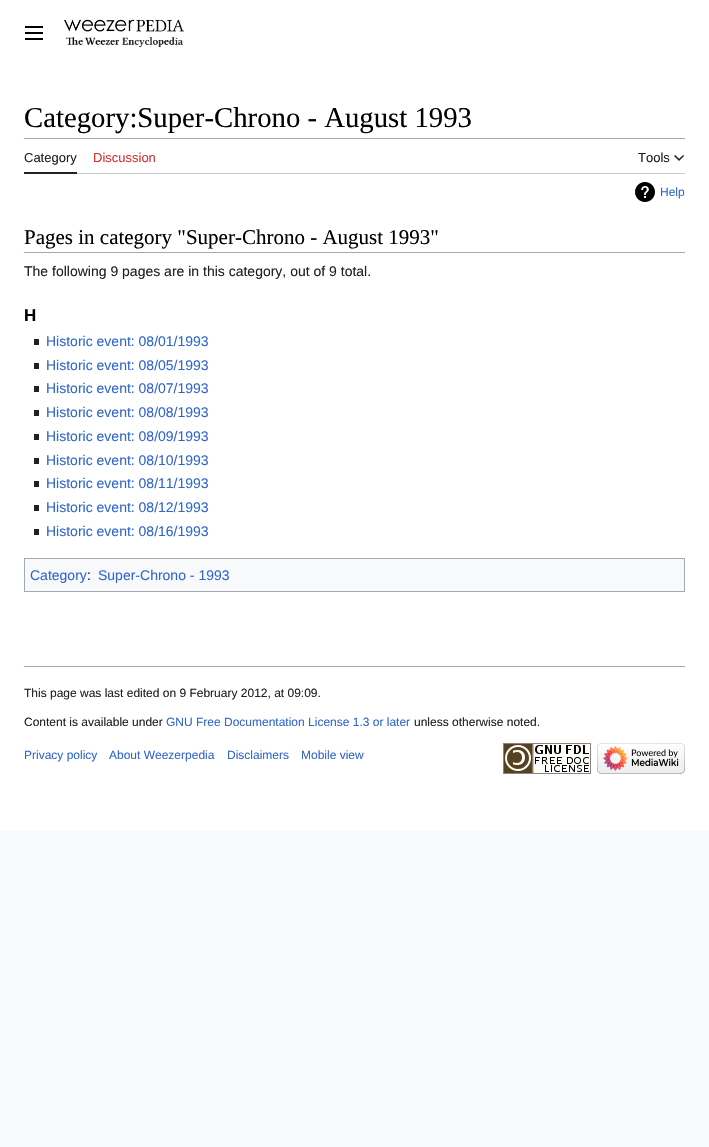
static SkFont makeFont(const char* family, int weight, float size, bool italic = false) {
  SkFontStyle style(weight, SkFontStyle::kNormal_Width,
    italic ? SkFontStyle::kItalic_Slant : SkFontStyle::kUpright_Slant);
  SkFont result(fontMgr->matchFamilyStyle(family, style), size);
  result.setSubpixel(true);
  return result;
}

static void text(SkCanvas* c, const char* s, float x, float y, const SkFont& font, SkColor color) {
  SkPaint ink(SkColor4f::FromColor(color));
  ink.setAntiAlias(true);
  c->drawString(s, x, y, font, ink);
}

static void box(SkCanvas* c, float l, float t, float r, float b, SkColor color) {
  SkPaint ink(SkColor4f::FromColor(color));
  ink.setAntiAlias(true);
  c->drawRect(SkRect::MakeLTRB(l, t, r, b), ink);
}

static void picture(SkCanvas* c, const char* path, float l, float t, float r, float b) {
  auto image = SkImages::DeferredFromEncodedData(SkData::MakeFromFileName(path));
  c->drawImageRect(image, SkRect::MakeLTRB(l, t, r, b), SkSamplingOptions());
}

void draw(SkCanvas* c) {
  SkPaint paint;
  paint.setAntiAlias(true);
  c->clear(0xfff8f9fa);
  box(c, 0, 0, 709, 831, 0xffffffff);
  picture(c, "img_01.png", 25, 26, 43, 40);
  picture(c, "img_02.png", 64, 19, 184, 32);
  picture(c, "img_03.png", 66, 37, 183, 47);
  box(c, 24, 138, 685, 139, 0xffa2a9b1);
  SkFont face1 = makeFont("Liberation Serif", 400, 28.75f);
  text(c, "Category:Super-Chrono - August 1993", 24, 127, face1, 0xff000000);
  box(c, 77, 173, 685, 174, 0xffc8ccd1);
  box(c, 24, 172, 77, 174, 0xff202122);
  SkFont face2 = makeFont("Liberation Sans", 400, 13);
  text(c, "Category", 24, 162, face2, 0xff202122);
  text(c, "Discussion", 93, 162, face2, 0xffd73333);
  text(c, "Tools", 638, 162, face2, 0xff202122);
  picture(c, "img_04.png", 674, 155, 684, 161);
  picture(c, "img_05.png", 635, 182, 655, 202);
  SkFont face3 = makeFont("Liberation Sans", 400, 12);
  text(c, "Help", 660, 196, face3, 0xff3366cc);
  box(c, 24, 252, 685, 253, 0xffa2a9b1);
  SkFont face4 = makeFont("Liberation Serif", 400, 21);
  text(c, "Pages in category \"Super-Chrono - August 1993\"", 24, 244, face4, 0xff000000);
  SkFont face5 = makeFont("Liberation Sans", 400, 14);
  text(c, "The following 9 pages are in this category, out of 9 total.", 24, 276, face5, 0xff202122);
  SkFont face6 = makeFont("Liberation Sans", 700, 17);
  text(c, "H", 24, 321, face6, 0xff000000);
  box(c, 34, 339, 39, 345, 0xff202122);
  text(c, "Historic event: 08/01/1993", 46, 346, face5, 0xff3366cc);
  box(c, 34, 363, 39, 369, 0xff202122);
  text(c, "Historic event: 08/05/1993", 46, 370, face5, 0xff3366cc);
  box(c, 34, 386, 39, 392, 0xff202122);
  text(c, "Historic event: 08/07/1993", 46, 393, face5, 0xff3366cc);
  box(c, 34, 410, 39, 416, 0xff202122);
  text(c, "Historic event: 08/08/1993", 46, 417, face5, 0xff3366cc);
  box(c, 34, 434, 39, 440, 0xff202122);
  text(c, "Historic event: 08/09/1993", 46, 441, face5, 0xff3366cc);
  box(c, 34, 458, 39, 464, 0xff202122);
  text(c, "Historic event: 08/10/1993", 46, 465, face5, 0xff3366cc);
  box(c, 34, 481, 39, 487, 0xff202122);
  text(c, "Historic event: 08/11/1993", 46, 488, face5, 0xff3366cc);
  box(c, 34, 505, 39, 511, 0xff202122);
  text(c, "Historic event: 08/12/1993", 46, 512, face5, 0xff3366cc);
  box(c, 34, 529, 39, 535, 0xff202122);
  text(c, "Historic event: 08/16/1993", 46, 536, face5, 0xff3366cc);
  paint.setColor(0xfff8f9fa);
  c->drawRect(SkRect::MakeLTRB(24.5f, 558.5f, 684.5f, 591.5f), paint);
  paint.setStyle(SkPaint::kStroke_Style);
  paint.setStrokeWidth(1);
  paint.setColor(0xffa2a9b1);
  c->drawRect(SkRect::MakeLTRB(24.5f, 558.5f, 684.5f, 591.5f), paint);
  text(c, "Category", 30, 580, face5, 0xff3366cc);
  text(c, ":", 87, 580, face5, 0xff202122);
  text(c, "Super-Chrono - 1993", 98, 580, face5, 0xff3366cc);
  box(c, 24, 666, 685, 667, 0xffa2a9b1);
  text(c, "This page was last edited on 9 February 2012, at 09:09.", 24, 697, face3, 0xff202122);
  text(c, "Content is available under", 24, 726, face3, 0xff202122);
  text(c, "GNU Free Documentation License 1.3 or later", 166, 726, face3, 0xff3366cc);
  text(c, "unless otherwise noted.", 414, 726, face3, 0xff202122);
  text(c, "Privacy policy", 24, 759, face3, 0xff3366cc);
  text(c, "About Weezerpedia", 109, 759, face3, 0xff3366cc);
  text(c, "Disclaimers", 227, 759, face3, 0xff3366cc);
  text(c, "Mobile view", 301, 759, face3, 0xff3366cc);
  picture(c, "img_06.png", 503, 743, 591, 774);
  picture(c, "img_07.png", 597, 743, 685, 774);
}
